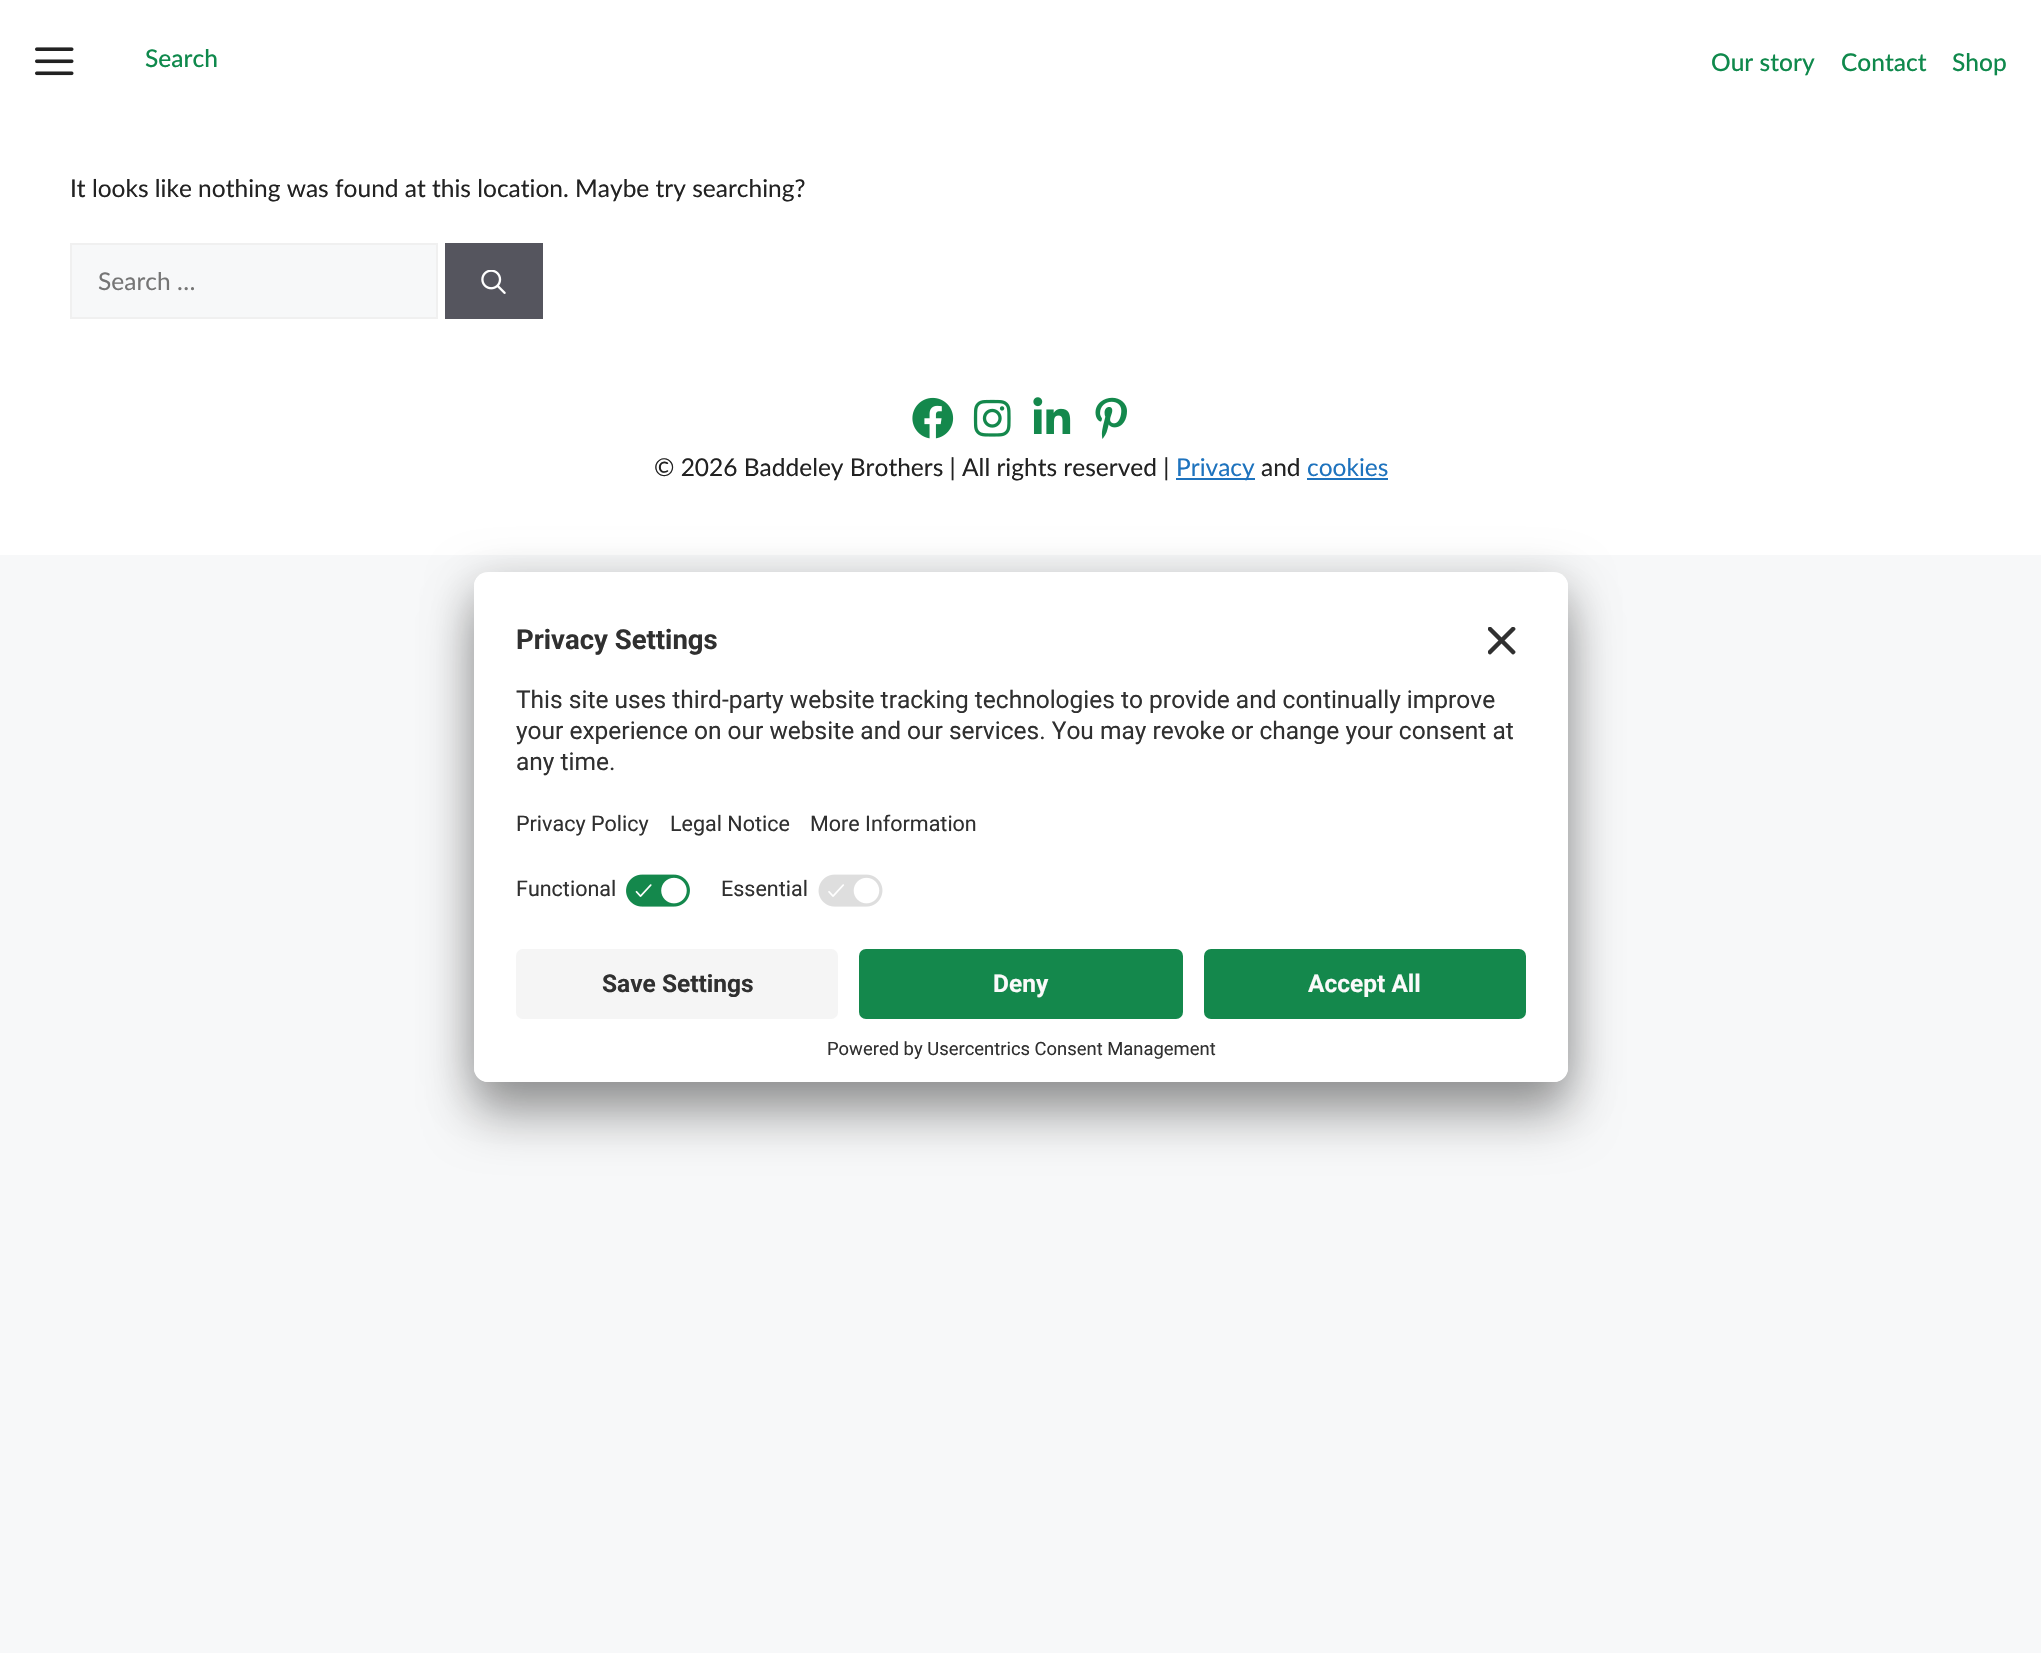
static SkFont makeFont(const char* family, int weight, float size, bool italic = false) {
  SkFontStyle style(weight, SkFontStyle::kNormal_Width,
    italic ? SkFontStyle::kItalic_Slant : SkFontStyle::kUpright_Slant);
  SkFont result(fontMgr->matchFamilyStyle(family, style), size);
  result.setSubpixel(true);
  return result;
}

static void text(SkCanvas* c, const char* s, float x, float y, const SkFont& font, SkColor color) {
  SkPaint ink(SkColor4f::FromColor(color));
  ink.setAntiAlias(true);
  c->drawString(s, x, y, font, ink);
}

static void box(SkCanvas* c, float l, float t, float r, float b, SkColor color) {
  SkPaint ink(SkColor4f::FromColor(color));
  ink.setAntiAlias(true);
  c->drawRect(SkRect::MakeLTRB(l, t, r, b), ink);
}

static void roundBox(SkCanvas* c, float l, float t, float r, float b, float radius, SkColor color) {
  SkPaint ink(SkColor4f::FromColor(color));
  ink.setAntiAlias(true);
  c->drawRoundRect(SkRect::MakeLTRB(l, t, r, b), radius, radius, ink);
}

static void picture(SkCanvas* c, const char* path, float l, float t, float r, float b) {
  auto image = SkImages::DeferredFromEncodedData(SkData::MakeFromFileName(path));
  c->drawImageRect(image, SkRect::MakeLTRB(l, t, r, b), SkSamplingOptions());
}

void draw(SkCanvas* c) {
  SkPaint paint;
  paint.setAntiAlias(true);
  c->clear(0xfff7f8f9);
  box(c, 0, 0, 2041, 555, 0xffffffff);
  picture(c, "img_01.png", 35, 47, 74, 76);
  SkFont face1 = makeFont("Lato", 500, 24.5f);
  text(c, "Search", 145, 67, face1, 0xff0f894c);
  text(c, "Our story", 1711, 71, face1, 0xff0f894c);
  text(c, "Contact", 1841, 71, face1, 0xff0f894c);
  text(c, "Shop", 1952, 71, face1, 0xff0f894c);
  SkFont face2 = makeFont("Lato", 400, 24.5f);
  text(c, "It looks like nothing was found at this location. Maybe try searching?", 70, 197, face2, 0xff222222);
  paint.setColor(0xfff7f8f9);
  c->drawRect(SkRect::MakeLTRB(71, 244, 437, 318), paint);
  paint.setStyle(SkPaint::kStroke_Style);
  paint.setStrokeWidth(2);
  paint.setColor(0xfff0f0f0);
  c->drawRect(SkRect::MakeLTRB(71, 244, 437, 318), paint);
  text(c, "Search …", 98, 290, face2, 0xff757575);
  box(c, 445, 243, 543, 319, 0xff55555e);
  picture(c, "img_02.png", 481, 270, 506, 294);
  picture(c, "img_03.png", 912, 397, 954, 439);
  picture(c, "img_04.png", 973, 399, 1011, 437);
  picture(c, "img_05.png", 1033, 397, 1071, 434);
  picture(c, "img_06.png", 1095, 397, 1127, 439);
  text(c, "© 2026 Baddeley Brothers | All rights reserved |", 654, 476, face2, 0xff222222);
  box(c, 1176, 478, 1255, 480, 0xff1e73be);
  text(c, "Privacy", 1176, 476, face2, 0xff1e73be);
  text(c, "and", 1261, 476, face2, 0xff222222);
  text(c, "cookies", 1307, 476, face2, 0xff1e73be);
  box(c, 1307, 478, 1388, 480, 0xff1e73be);
  paint.setStyle(SkPaint::kFill_Style);
  paint.setColor(0x4d000000);
  paint.setMaskFilter(SkMaskFilter::MakeBlur(kNormal_SkBlurStyle, 24.5f));
  c->drawRoundRect(SkRect::MakeLTRB(474, 607, 1568, 1117), 14, 14, paint);
  paint.setMaskFilter(nullptr);
  paint.setColor(0x38000000);
  paint.setMaskFilter(SkMaskFilter::MakeBlur(kNormal_SkBlurStyle, 23));
  c->drawRoundRect(SkRect::MakeLTRB(474, 581, 1568, 1090), 14, 14, paint);
  paint.setMaskFilter(nullptr);
  roundBox(c, 474, 572, 1568, 1082, 14, 0xffffffff);
  c->save();
  c->clipPath(SkPathBuilder().moveTo(488, 572).lineTo(1554, 572).cubicTo(1561.5f, 572, 1568, 578.5f, 1568, 586).lineTo(1568, 1068).cubicTo(1568, 1075.5f, 1561.5f, 1082, 1554, 1082).lineTo(488, 1082).cubicTo(480.5f, 1082, 474, 1075.5f, 474, 1068).lineTo(474, 586).cubicTo(474, 578.5f, 480.5f, 572, 488, 572).close().detach(), true);
  c->clipPath(SkPathBuilder().moveTo(488, 572).lineTo(1554, 572).cubicTo(1561.5f, 572, 1568, 578.5f, 1568, 586).lineTo(1568, 935).lineTo(474, 935).lineTo(474, 586).cubicTo(474, 578.5f, 480.5f, 572, 488, 572).close().detach(), true);
  box(c, 474, 574, 1568, 935, 0xffffffff);
  box(c, 474, 574, 1568, 865, 0xffffffff);
  c->restore();
  SkFont face3 = makeFont("Roboto", 700, 27.5f);
  text(c, "Privacy Settings", 516, 649, face3, 0xff303030);
  picture(c, "img_07.png", 1488, 627, 1516, 655);
  SkFont face4 = makeFont("Roboto", 400, 24.5f);
  text(c, "This site uses third-party website tracking technologies to provide and continually improve", 516, 708, face4, 0xff303030);
  text(c, "your experience on our website and our services. You may revoke or change your consent at", 516, 739, face4, 0xff303030);
  text(c, "any time.", 516, 770, face4, 0xff303030);
  SkFont face5 = makeFont("Roboto", 400, 21.5f);
  text(c, "Privacy Policy", 516, 831, face5, 0xff303030);
  text(c, "Legal Notice", 670, 831, face5, 0xff303030);
  text(c, "More Information", 810, 831, face5, 0xff303030);
  text(c, "Functional", 516, 896, face5, 0xff303030);
  picture(c, "img_08.png", 626, 874, 690, 907);
  text(c, "Essential", 721, 896, face5, 0xff303030);
  picture(c, "img_09.png", 818, 874, 883, 907);
  paint.setColor(0xffffffff);
  c->drawPath(SkPathBuilder().moveTo(474, 935).lineTo(1568, 935).lineTo(1568, 1068).cubicTo(1568, 1075.5f, 1561.5f, 1082, 1554, 1082).lineTo(488, 1082).cubicTo(480.5f, 1082, 474, 1075.5f, 474, 1068).close().detach(), paint);
  roundBox(c, 516, 949, 838, 1019, 7, 0xfff5f5f5);
  SkFont face6 = makeFont("Roboto", 700, 24.5f);
  text(c, "Save Settings", 602, 992, face6, 0xff303030);
  roundBox(c, 859, 949, 1183, 1019, 7, 0xff14884c);
  text(c, "Deny", 993, 992, face6, 0xfffafafa);
  roundBox(c, 1204, 949, 1526, 1019, 7, 0xff14884c);
  text(c, "Accept All", 1308, 992, face6, 0xfffafafa);
  SkFont face7 = makeFont("Roboto", 400, 18.4f);
  text(c, "Powered by Usercentrics Consent Management", 827, 1055, face7, 0xff303030);
}
